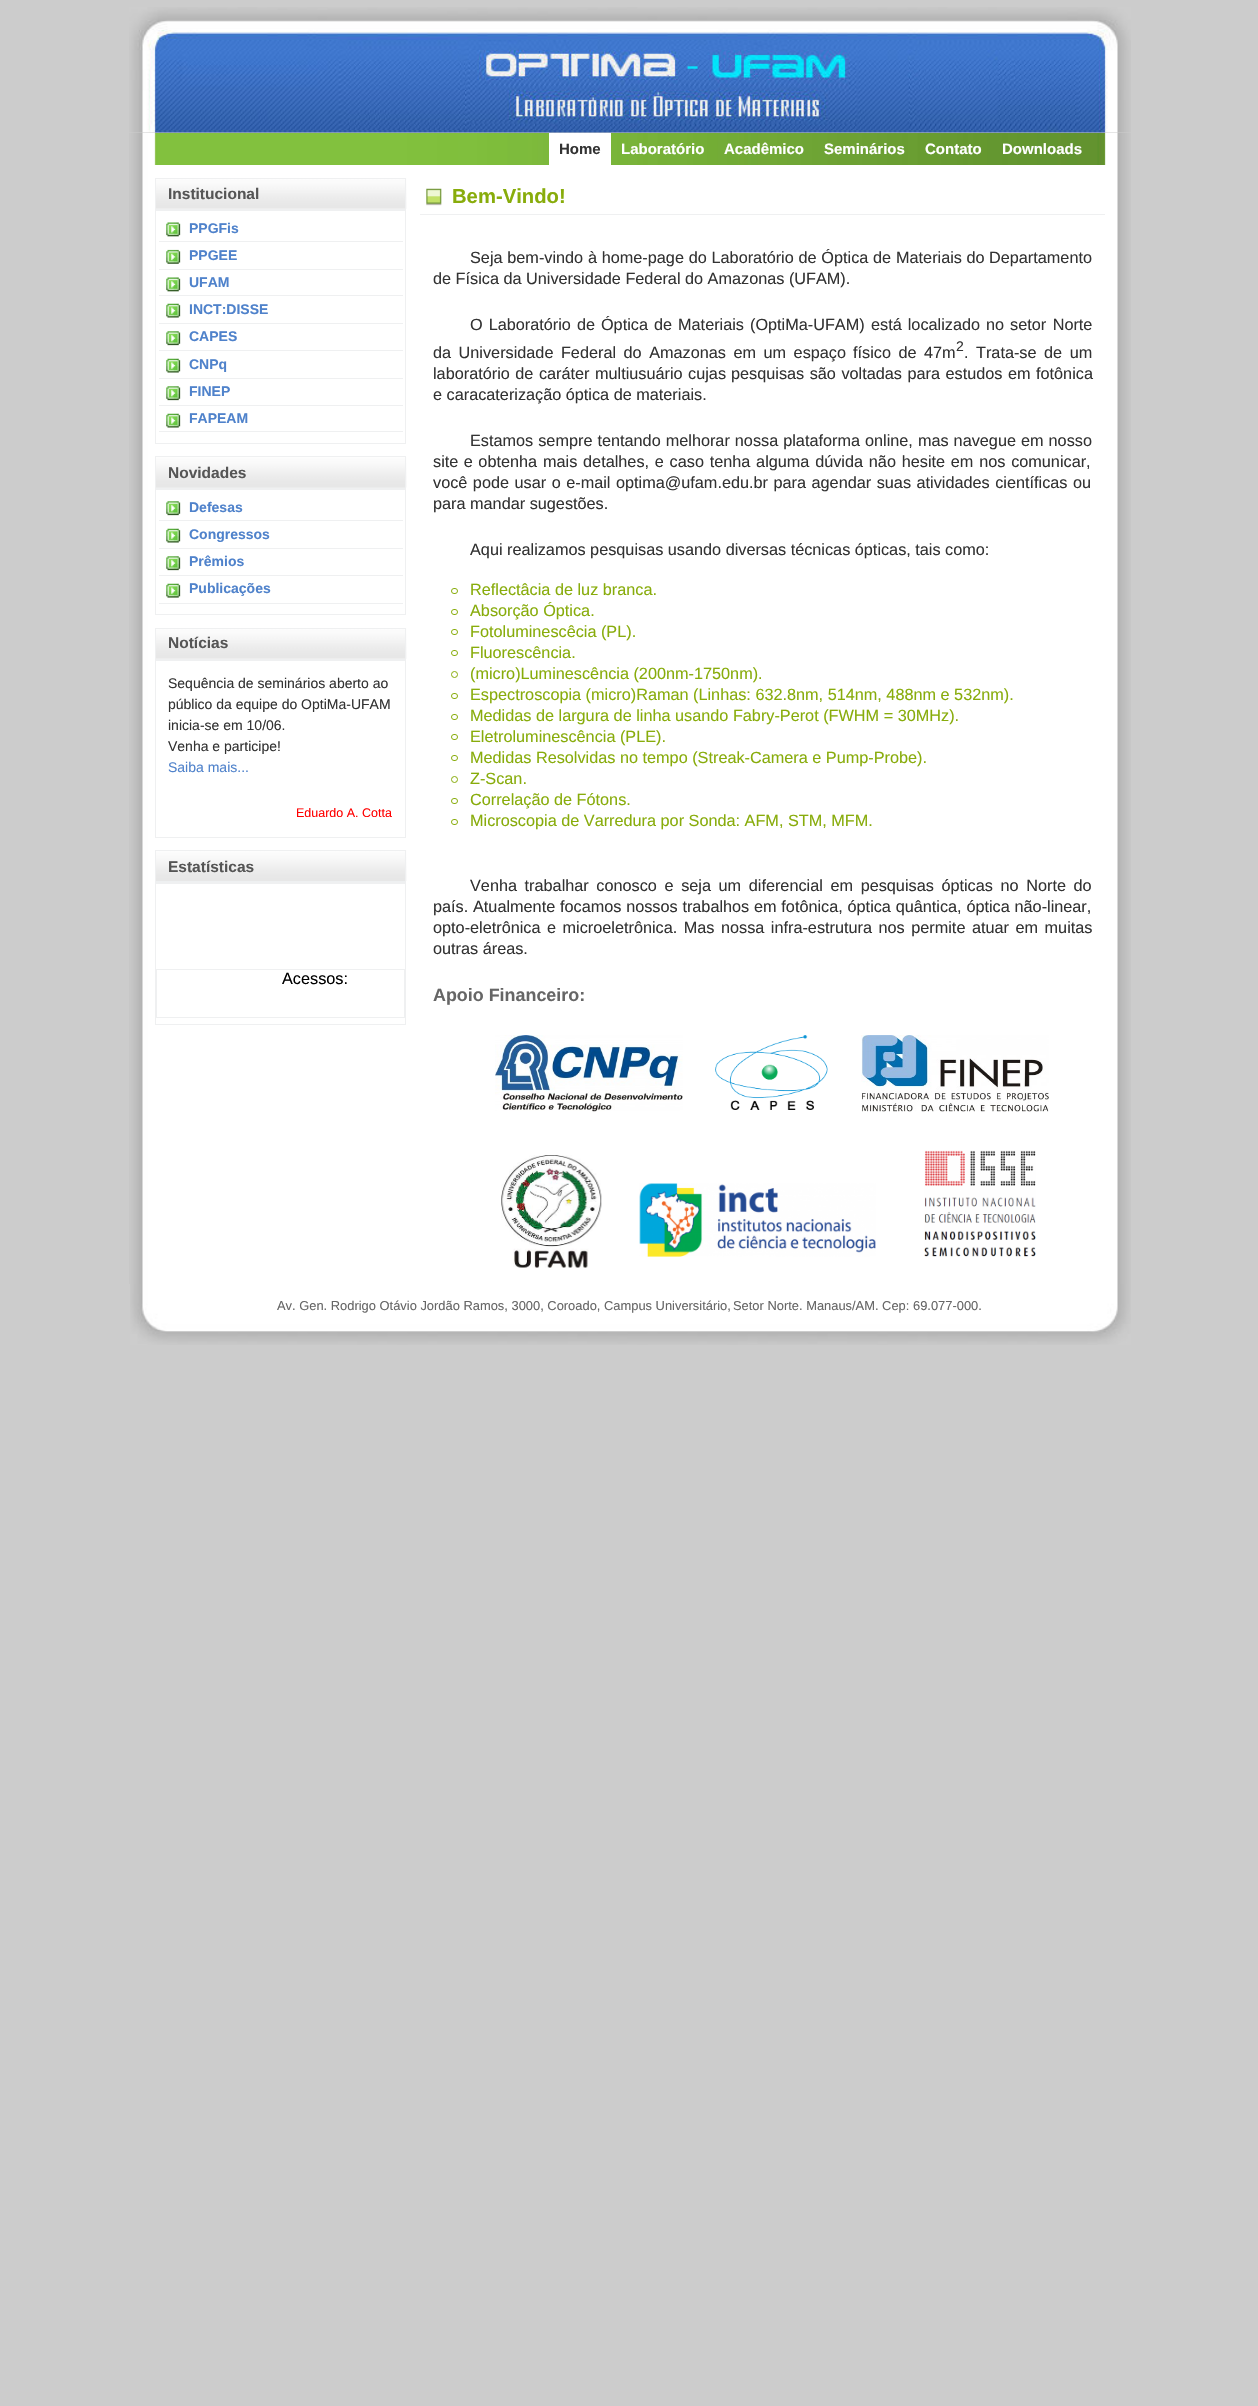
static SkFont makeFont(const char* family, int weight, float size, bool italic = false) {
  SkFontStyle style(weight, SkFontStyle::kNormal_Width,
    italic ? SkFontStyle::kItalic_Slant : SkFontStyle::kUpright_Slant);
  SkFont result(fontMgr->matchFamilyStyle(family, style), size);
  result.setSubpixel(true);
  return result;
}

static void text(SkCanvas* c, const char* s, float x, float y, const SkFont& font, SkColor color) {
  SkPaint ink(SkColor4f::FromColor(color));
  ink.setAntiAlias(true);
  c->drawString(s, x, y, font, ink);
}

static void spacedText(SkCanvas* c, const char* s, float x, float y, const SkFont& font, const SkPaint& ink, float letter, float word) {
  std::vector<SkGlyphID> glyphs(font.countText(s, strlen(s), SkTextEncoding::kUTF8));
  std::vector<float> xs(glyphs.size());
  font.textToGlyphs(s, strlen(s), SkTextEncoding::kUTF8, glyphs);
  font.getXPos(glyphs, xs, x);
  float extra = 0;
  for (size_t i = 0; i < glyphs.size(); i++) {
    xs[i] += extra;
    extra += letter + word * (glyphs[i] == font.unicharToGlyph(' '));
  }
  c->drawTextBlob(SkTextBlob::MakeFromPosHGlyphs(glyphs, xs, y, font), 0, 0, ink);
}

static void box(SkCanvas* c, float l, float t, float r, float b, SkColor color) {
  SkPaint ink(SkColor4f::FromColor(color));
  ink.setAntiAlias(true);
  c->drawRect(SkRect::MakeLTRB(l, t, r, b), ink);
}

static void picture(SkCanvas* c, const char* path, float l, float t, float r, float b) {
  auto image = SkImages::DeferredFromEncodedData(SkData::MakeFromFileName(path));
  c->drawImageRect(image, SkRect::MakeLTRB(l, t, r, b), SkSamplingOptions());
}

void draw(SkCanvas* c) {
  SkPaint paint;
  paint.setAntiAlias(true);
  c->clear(0xffcccccc);
  picture(c, "img_01.png", 129, 133, 1131, 1284);
  picture(c, "img_02.png", 129, 7, 1131, 133);
  picture(c, "img_03.png", 154, 133, 1106, 165);
  box(c, 549, 133, 611, 165, 0xffffffff);
  SkFont face1 = makeFont("Liberation Sans", 700, 15);
  text(c, "Home", 559, 154, face1, 0xff333333);
  text(c, "Laboratório", 621, 154, face1, 0xffffffff);
  text(c, "Acadêmico", 724, 154, face1, 0xffffffff);
  text(c, "Seminários", 824, 154, face1, 0xffffffff);
  text(c, "Contato", 925, 154, face1, 0xffffffff);
  text(c, "Downloads", 1002, 154, face1, 0xffffffff);
  picture(c, "img_04.png", 156, 178, 407, 209);
  paint.setStyle(SkPaint::kStroke_Style);
  paint.setStrokeWidth(1);
  paint.setColor(0xffeff0f1);
  c->drawRect(SkRect::MakeLTRB(155.5f, 178.5f, 405.5f, 209.5f), paint);
  SkFont face2 = makeFont("Liberation Sans", 700, 15.5f);
  text(c, "Institucional", 168, 199, face2, 0xff555555);
  c->drawRect(SkRect::MakeLTRB(155.5f, 210.5f, 405.5f, 443.5f), paint);
  picture(c, "img_05.png", 166, 222, 181, 237);
  box(c, 159, 241, 403, 242, 0xffeff0f1);
  SkFont face3 = makeFont("Liberation Sans", 700, 14);
  text(c, "PPGFis", 189, 233, face3, 0xff4f82cb);
  picture(c, "img_06.png", 166, 249, 181, 264);
  box(c, 159, 269, 403, 270, 0xffeff0f1);
  text(c, "PPGEE", 189, 260, face3, 0xff4f82cb);
  picture(c, "img_05.png", 166, 277, 181, 292);
  box(c, 159, 295, 403, 296, 0xffeff0f1);
  text(c, "UFAM", 189, 287, face3, 0xff4f82cb);
  picture(c, "img_07.png", 166, 303, 181, 318);
  box(c, 159, 323, 403, 324, 0xffeff0f1);
  text(c, "INCT:DISSE", 189, 314, face3, 0xff4f82cb);
  picture(c, "img_08.png", 166, 331, 181, 346);
  box(c, 159, 350, 403, 351, 0xffeff0f1);
  text(c, "CAPES", 189, 341, face3, 0xff4f82cb);
  picture(c, "img_07.png", 166, 358, 181, 373);
  box(c, 159, 378, 403, 379, 0xffeff0f1);
  text(c, "CNPq", 189, 369, face3, 0xff4f82cb);
  picture(c, "img_08.png", 166, 386, 181, 401);
  box(c, 159, 405, 403, 406, 0xffeff0f1);
  text(c, "FINEP", 189, 396, face3, 0xff4f82cb);
  picture(c, "img_07.png", 166, 413, 181, 428);
  box(c, 159, 431, 403, 432, 0xffeff0f1);
  text(c, "FAPEAM", 189, 423, face3, 0xff4f82cb);
  box(c, 156, 487, 405, 488, 0xffeef0f1);
  picture(c, "img_09.png", 156, 456, 407, 488);
  c->drawRect(SkRect::MakeLTRB(155.5f, 456.5f, 405.5f, 488.5f), paint);
  text(c, "Novidades", 168, 478, face2, 0xff555555);
  c->drawRect(SkRect::MakeLTRB(155.5f, 489.5f, 405.5f, 614.5f), paint);
  picture(c, "img_08.png", 166, 501, 181, 516);
  box(c, 159, 520, 403, 521, 0xffeff0f1);
  text(c, "Defesas", 189, 512, face3, 0xff4f82cb);
  picture(c, "img_07.png", 166, 528, 181, 543);
  box(c, 159, 548, 403, 549, 0xffeff0f1);
  text(c, "Congressos", 189, 539, face3, 0xff4f82cb);
  picture(c, "img_08.png", 166, 556, 181, 571);
  box(c, 159, 575, 403, 576, 0xffeff0f1);
  text(c, "Prêmios", 189, 566, face3, 0xff4f82cb);
  picture(c, "img_10.png", 166, 583, 181, 598);
  box(c, 159, 603, 403, 604, 0xffeff0f1);
  text(c, "Publicações", 189, 593, face3, 0xff4f82cb);
  picture(c, "img_04.png", 156, 628, 407, 659);
  c->drawRect(SkRect::MakeLTRB(155.5f, 628.5f, 405.5f, 659.5f), paint);
  text(c, "Notícias", 168, 648, face2, 0xff555555);
  c->drawRect(SkRect::MakeLTRB(155.5f, 660.5f, 405.5f, 837.5f), paint);
  SkFont face4 = makeFont("Liberation Sans", 400, 14);
  text(c, "Sequência de seminários aberto ao", 168, 688, face4, 0xff333333);
  text(c, "público da equipe do OptiMa-UFAM", 168, 709, face4, 0xff333333);
  text(c, "inicia-se em 10/06.", 168, 730, face4, 0xff333333);
  text(c, "Venha e participe!", 168, 751, face4, 0xff333333);
  text(c, "Saiba mais...", 168, 772, face4, 0xff4f82cb);
  SkFont face5 = makeFont("Liberation Sans", 400, 12.5f);
  text(c, "Eduardo A. Cotta", 296, 817, face5, 0xffff0000);
  box(c, 156, 881, 405, 882, 0xffeef0f1);
  picture(c, "img_11.png", 156, 850, 407, 881);
  c->drawRect(SkRect::MakeLTRB(155.5f, 850.5f, 405.5f, 882.5f), paint);
  text(c, "Estatísticas", 168, 872, face2, 0xff555555);
  c->drawRect(SkRect::MakeLTRB(155.5f, 883.5f, 405.5f, 1024.5f), paint);
  c->drawRect(SkRect::MakeLTRB(156.5f, 969.5f, 404.5f, 1017.5f), paint);
  SkFont face6 = makeFont("Liberation Sans", 400, 16.25f);
  text(c, "Acessos:", 282, 984, face6, 0xff000000);
  picture(c, "img_12.png", 426, 188, 442, 206);
  box(c, 420, 214, 1105, 215, 0xffeff0f1);
  SkFont face7 = makeFont("Liberation Sans", 700, 20.25f);
  text(c, "Bem-Vindo!", 452, 203, face7, 0xff88ac0b);
  paint.setStyle(SkPaint::kFill_Style);
  paint.setColor(0xff333333);
  spacedText(c, "Seja bem-vindo à home-page do Laboratório de Óptica de", 470, 263, face6, paint, 0, 0.25f);
  text(c, "Materiais do Departamento", 896, 263, face6, 0xff333333);
  text(c, "de Física da Universidade Federal do Amazonas (UFAM).", 433, 284, face6, 0xff333333);
  spacedText(c, "O Laboratório de Óptica de Materiais (OptiMa-UFAM)", 470, 330, face6, paint, 0, 1.5f);
  spacedText(c, "está localizado no", 871, 330, face6, paint, 0, 1.5f);
  spacedText(c, "setor Norte", 1010, 330, face6, paint, 0, 2);
  spacedText(c, "da Universidade Federal do Amazonas em um espaço", 433, 358, face6, paint, 0, 3);
  spacedText(c, "físico de 47m", 853, 358, face6, paint, 0, 3);
  text(c, "2", 956, 351, face4, 0xff333333);
  spacedText(c, ". Trata-se de um", 964, 358, face6, paint, 0, 3);
  spacedText(c, "laboratório de caráter multiusuário cujas", 433, 379, face6, paint, 0, 1);
  spacedText(c, "pesquisas são voltadas para estudos em fotônica", 731, 379, face6, paint, 0, 1);
  text(c, "e caracaterização óptica de materiais.", 433, 400, face6, 0xff333333);
  spacedText(c, "Estamos sempre tentando melhorar nossa plataforma online, mas navegue em nosso", 470, 446, face6, paint, 0, 0.5f);
  spacedText(c, "site e obtenha", 433, 467, face6, paint, 0, 1);
  spacedText(c, "mais detalhes, e caso tenha alguma dúvida não hesite em nos comunicar,", 543, 467, face6, paint, 0, 1.25f);
  spacedText(c, "você pode usar o e-mail", 433, 488, face6, paint, 0, 1);
  spacedText(c, "optima@ufam.edu.br para agendar suas atividades científicas ou", 616, 488, face6, paint, 0, 1);
  text(c, "para mandar sugestões.", 433, 509, face6, 0xff333333);
  text(c, "Aqui realizamos pesquisas usando diversas técnicas ópticas, tais como:", 470, 555, face6, 0xff333333);
  paint.setStyle(SkPaint::kStroke_Style);
  paint.setColor(0xff88ac0b);
  c->drawRoundRect(SkRect::MakeLTRB(451.5f, 588.5f, 457.5f, 593.5f), 2.5f, 2.5f, paint);
  text(c, "Reflectâcia de luz branca.", 470, 595, face6, 0xff88ac0b);
  c->drawRoundRect(SkRect::MakeLTRB(451.5f, 609.5f, 457.5f, 614.5f), 2.5f, 2.5f, paint);
  text(c, "Absorção Óptica.", 470, 616, face6, 0xff88ac0b);
  c->drawRoundRect(SkRect::MakeLTRB(451.5f, 629.5f, 457.5f, 634.5f), 2.5f, 2.5f, paint);
  text(c, "Fotoluminescêcia (PL).", 470, 637, face6, 0xff88ac0b);
  c->drawRoundRect(SkRect::MakeLTRB(451.5f, 650.5f, 457.5f, 655.5f), 2.5f, 2.5f, paint);
  text(c, "Fluorescência.", 470, 658, face6, 0xff88ac0b);
  c->drawCircle(454.5f, 674.5f, 3, paint);
  text(c, "(micro)Luminescência (200nm-1750nm).", 470, 679, face6, 0xff88ac0b);
  c->drawRoundRect(SkRect::MakeLTRB(451.5f, 693.5f, 457.5f, 698.5f), 2.5f, 2.5f, paint);
  text(c, "Espectroscopia (micro)Raman (Linhas: 632.8nm, 514nm, 488nm e 532nm).", 470, 700, face6, 0xff88ac0b);
  c->drawRoundRect(SkRect::MakeLTRB(451.5f, 714.5f, 457.5f, 719.5f), 2.5f, 2.5f, paint);
  text(c, "Medidas de largura de linha usando Fabry-Perot (FWHM = 30MHz).", 470, 721, face6, 0xff88ac0b);
  c->drawRoundRect(SkRect::MakeLTRB(451.5f, 734.5f, 457.5f, 739.5f), 2.5f, 2.5f, paint);
  text(c, "Eletroluminescência (PLE).", 470, 742, face6, 0xff88ac0b);
  c->drawRoundRect(SkRect::MakeLTRB(451.5f, 755.5f, 457.5f, 760.5f), 2.5f, 2.5f, paint);
  text(c, "Medidas Resolvidas no tempo (Streak-Camera e Pump-Probe).", 470, 763, face6, 0xff88ac0b);
  c->drawCircle(454.5f, 779.5f, 3, paint);
  text(c, "Z-Scan.", 470, 784, face6, 0xff88ac0b);
  c->drawRoundRect(SkRect::MakeLTRB(451.5f, 798.5f, 457.5f, 803.5f), 2.5f, 2.5f, paint);
  text(c, "Correlação de Fótons.", 470, 805, face6, 0xff88ac0b);
  c->drawRoundRect(SkRect::MakeLTRB(451.5f, 819.5f, 457.5f, 824.5f), 2.5f, 2.5f, paint);
  text(c, "Microscopia de Varredura por Sonda: AFM, STM, MFM.", 470, 826, face6, 0xff88ac0b);
  paint.setStyle(SkPaint::kFill_Style);
  paint.setColor(0xff333333);
  spacedText(c, "Venha trabalhar conosco e seja um diferencial em pesquisas ópticas no Norte do", 470, 891, face6, paint, 0, 3.1f);
  text(c, "país.", 433, 912, face6, 0xff333333);
  spacedText(c, "Atualmente focamos nossos trabalhos em fotônica, óptica quântica, óptica não-linear,", 473, 912, face6, paint, 0, 0.25f);
  text(c, "opto-eletrônica", 433, 933, face6, 0xff333333);
  spacedText(c, "e microeletrônica. Mas nossa infra-estrutura nos permite atuar em muitas", 547, 933, face6, paint, 0, 2);
  text(c, "outras áreas.", 433, 954, face6, 0xff333333);
  SkFont face8 = makeFont("Liberation Sans", 700, 17.9f);
  text(c, "Apoio Financeiro:", 433, 1001, face8, 0xff666666);
  picture(c, "img_13.png", 495, 1035, 683, 1112);
  picture(c, "img_14.png", 715, 1035, 828, 1110);
  picture(c, "img_15.png", 861, 1035, 1049, 1112);
  picture(c, "img_16.png", 501, 1155, 602, 1268);
  picture(c, "img_17.png", 639, 1183, 876, 1257);
  picture(c, "img_18.png", 924, 1150, 1036, 1257);
  picture(c, "img_19.png", 130, 1284, 1131, 1345);
  SkFont face9 = makeFont("Liberation Sans", 400, 12.9f);
  text(c, "Av. Gen. Rodrigo Otávio Jordão Ramos, 3000, Coroado, Campus Universitário,", 277, 1310, face9, 0xff666666);
  text(c, "Setor Norte. Manaus/AM. Cep: 69.077-000.", 733, 1310, face9, 0xff666666);
}
